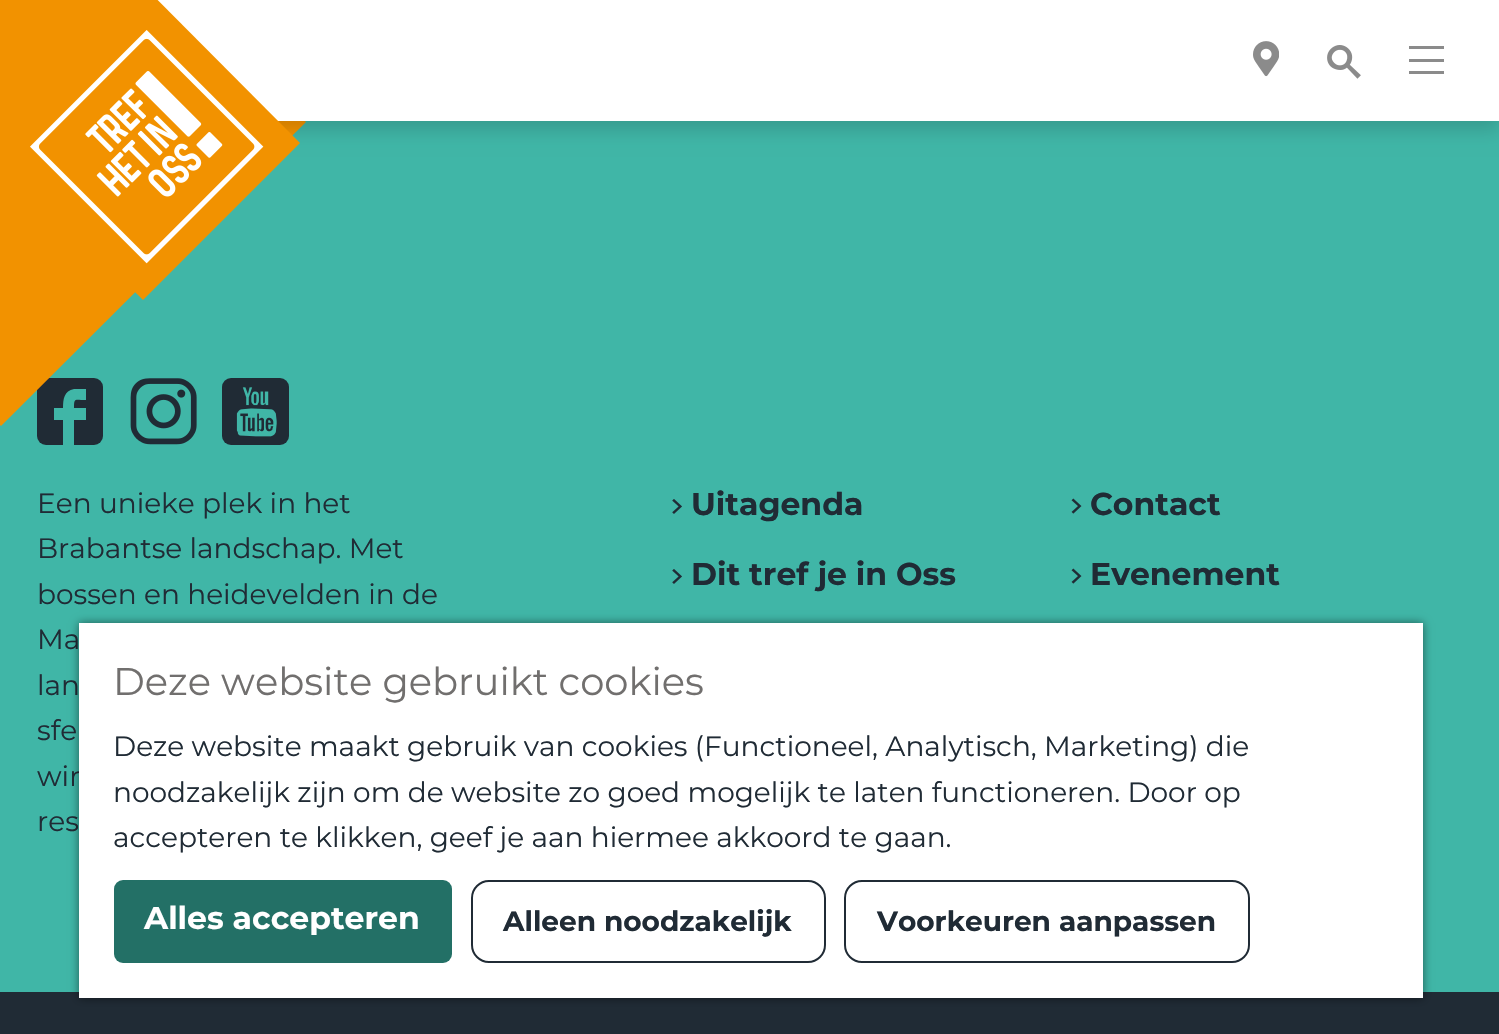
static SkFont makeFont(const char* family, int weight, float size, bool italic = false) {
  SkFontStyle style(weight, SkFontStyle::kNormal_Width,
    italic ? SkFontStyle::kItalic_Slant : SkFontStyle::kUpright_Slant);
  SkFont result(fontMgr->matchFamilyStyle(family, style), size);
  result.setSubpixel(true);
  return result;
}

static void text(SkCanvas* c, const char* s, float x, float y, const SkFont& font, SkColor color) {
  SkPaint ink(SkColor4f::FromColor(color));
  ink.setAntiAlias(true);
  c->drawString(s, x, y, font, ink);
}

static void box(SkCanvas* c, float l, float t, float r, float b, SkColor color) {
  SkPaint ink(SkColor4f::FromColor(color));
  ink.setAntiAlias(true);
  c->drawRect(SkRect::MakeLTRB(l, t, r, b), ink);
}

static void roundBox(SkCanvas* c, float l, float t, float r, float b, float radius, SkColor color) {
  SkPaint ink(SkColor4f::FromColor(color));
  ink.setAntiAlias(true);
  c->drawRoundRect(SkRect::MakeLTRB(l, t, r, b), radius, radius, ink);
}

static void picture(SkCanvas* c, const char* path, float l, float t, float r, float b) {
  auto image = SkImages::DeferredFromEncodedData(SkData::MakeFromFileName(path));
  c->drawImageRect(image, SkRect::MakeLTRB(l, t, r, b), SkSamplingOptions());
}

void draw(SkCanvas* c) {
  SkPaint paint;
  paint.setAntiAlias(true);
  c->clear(0xff40b6a7);
  roundBox(c, 37, 378, 103, 445, 9, 0xff202b35);
  paint.setColor(0xff40b6a7);
  c->drawPath(SkPathBuilder().moveTo(86, 400).cubicTo(75, 400, 74, 397, 74, 408).lineTo(86, 408).lineTo(86, 420).lineTo(74, 420).lineTo(74, 446).lineTo(63, 446).lineTo(63, 420).lineTo(54, 420).lineTo(54, 408).lineTo(63, 408).cubicTo(63, 399, 64, 391, 74, 389).lineTo(86, 389).close().detach(), paint);
  picture(c, "img_04.png", 130, 378, 197, 445);
  roundBox(c, 222, 378, 289, 445, 9, 0xff202b35);
  picture(c, "img_05.png", 236, 387, 277, 437);
  paint.setColor(0xfff29200);
  c->drawPath(SkPathBuilder().moveTo(-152, 273).lineTo(152, -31).lineTo(306, 122).lineTo(1, 426).close().detach(), paint);
  paint.setColor(0x26000000);
  paint.setMaskFilter(SkMaskFilter::MakeBlur(kNormal_SkBlurStyle, 9));
  c->drawRect(SkRect::MakeLTRB(0, 9, 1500, 130), paint);
  paint.setMaskFilter(nullptr);
  box(c, 157, 0, 1499, 121, 0xffffffff);
  paint.setColor(0xfff29200);
  c->drawPath(SkPathBuilder().moveTo(-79, 79).lineTo(79, -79).lineTo(300, 143).lineTo(143, 300).close().detach(), paint);
  picture(c, "img_01.png", 30, 30, 264, 264);
  picture(c, "img_02.png", 1253, 41, 1279, 77);
  picture(c, "img_03.png", 1327, 45, 1361, 79);
  paint.setColor(0xff8b8b8b);
  c->drawPath(SkPathBuilder().moveTo(1409, 46).lineTo(1444, 46).lineTo(1444, 49).lineTo(1409, 49).close().moveTo(1409, 59).lineTo(1444, 59).lineTo(1444, 62).lineTo(1409, 62).close().moveTo(1409, 71).lineTo(1444, 71).lineTo(1444, 74).lineTo(1409, 74).close().detach(), paint);
  SkFont face1 = makeFont("Montserrat", 400, 28);
  text(c, "Een unieke plek in het", 37, 513, face1, 0xff202b35);
  text(c, "Brabantse landschap. Met", 37, 558, face1, 0xff202b35);
  text(c, "bossen en heidevelden in de", 37, 604, face1, 0xff202b35);
  text(c, "Ma", 37, 649, face1, 0xff202b35);
  text(c, "lan", 37, 695, face1, 0xff202b35);
  text(c, "sfe", 37, 740, face1, 0xff202b35);
  text(c, "win", 37, 786, face1, 0xff202b35);
  text(c, "res", 37, 831, face1, 0xff202b35);
  picture(c, "img_06.png", 672, 499, 682, 514);
  SkFont face2 = makeFont("Montserrat", 700, 31.5f);
  text(c, "Uitagenda", 691, 515, face2, 0xff202b35);
  picture(c, "img_06.png", 672, 569, 682, 584);
  text(c, "Dit tref je in Oss", 691, 585, face2, 0xff202b35);
  picture(c, "img_07.png", 1071, 498, 1082, 514);
  text(c, "Contact", 1090, 515, face2, 0xff202b35);
  picture(c, "img_07.png", 1071, 568, 1082, 584);
  text(c, "Evenement", 1090, 585, face2, 0xff202b35);
  box(c, 0, 992, 1499, 1034, 0xff202b35);
  paint.setColor(0x80000000);
  paint.setMaskFilter(SkMaskFilter::MakeBlur(kNormal_SkBlurStyle, 4.5f));
  c->drawRect(SkRect::MakeLTRB(79, 623, 1423, 998), paint);
  paint.setMaskFilter(nullptr);
  box(c, 79, 623, 1423, 998, 0xffffffff);
  SkFont face3 = makeFont("Montserrat", 400, 38.5f);
  text(c, "Deze website gebruikt cookies", 113, 695, face3, 0xff716f6e);
  text(c, "Deze website maakt gebruik van cookies (Functioneel, Analytisch, Marketing) die", 113, 756, face1, 0xff202b35);
  text(c, "noodzakelijk zijn om de website zo goed mogelijk te laten functioneren. Door op", 113, 802, face1, 0xff202b35);
  text(c, "accepteren te klikken, geef je aan hiermee akkoord te gaan.", 113, 847, face1, 0xff202b35);
  roundBox(c, 114, 880, 452, 963, 9, 0xff237066);
  text(c, "Alles accepteren", 144, 929, face2, 0xffffffff);
  paint.setStyle(SkPaint::kStroke_Style);
  paint.setStrokeWidth(2);
  paint.setColor(0xff202b35);
  c->drawRoundRect(SkRect::MakeLTRB(472, 881, 825, 962), 17, 17, paint);
  SkFont face4 = makeFont("Montserrat", 700, 28);
  text(c, "Alleen noodzakelijk", 503, 931, face4, 0xff202b35);
  c->drawRoundRect(SkRect::MakeLTRB(845, 881, 1249, 962), 17, 17, paint);
  text(c, "Voorkeuren aanpassen", 877, 931, face4, 0xff202b35);
}
